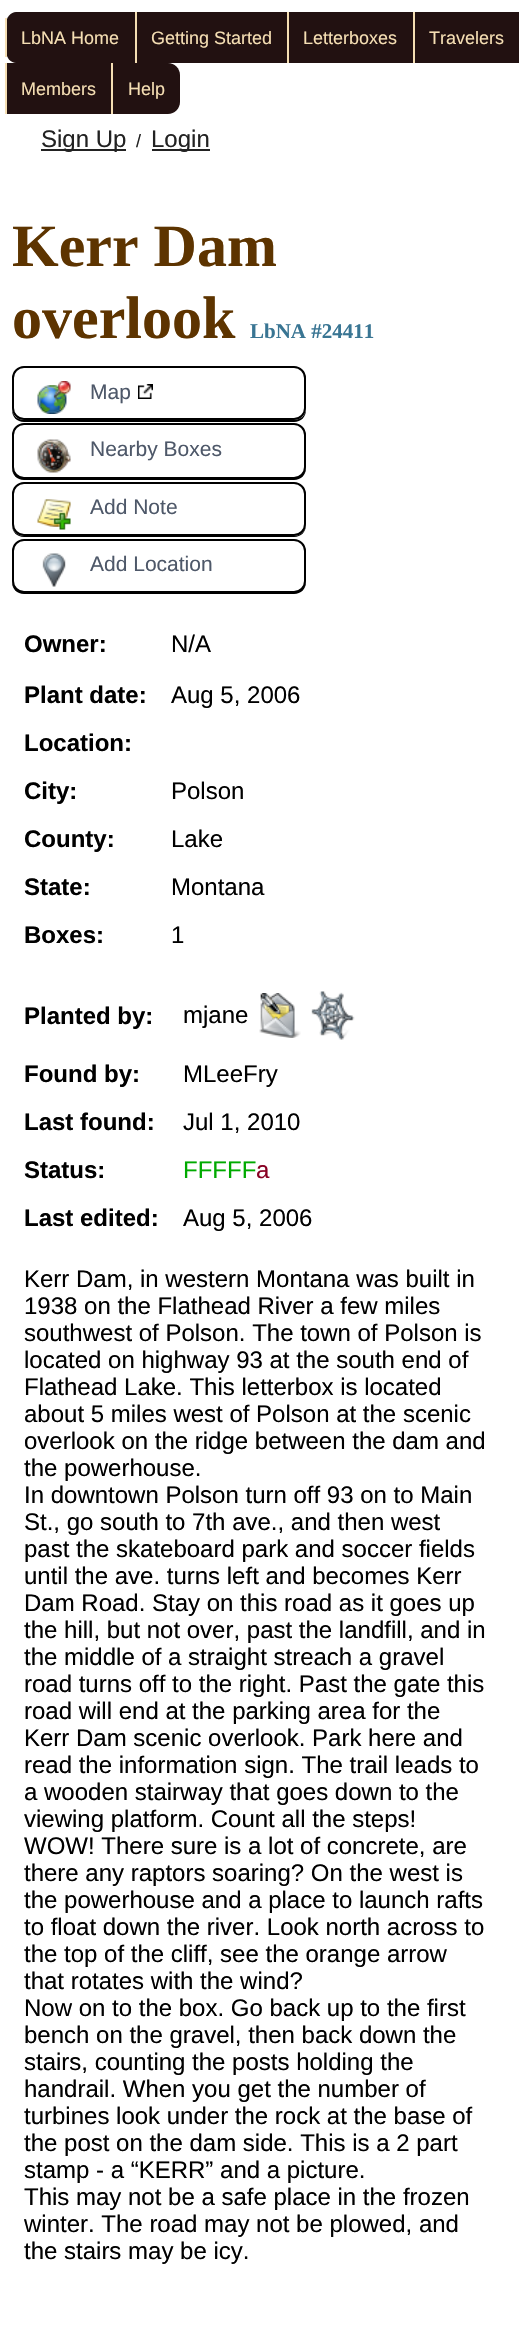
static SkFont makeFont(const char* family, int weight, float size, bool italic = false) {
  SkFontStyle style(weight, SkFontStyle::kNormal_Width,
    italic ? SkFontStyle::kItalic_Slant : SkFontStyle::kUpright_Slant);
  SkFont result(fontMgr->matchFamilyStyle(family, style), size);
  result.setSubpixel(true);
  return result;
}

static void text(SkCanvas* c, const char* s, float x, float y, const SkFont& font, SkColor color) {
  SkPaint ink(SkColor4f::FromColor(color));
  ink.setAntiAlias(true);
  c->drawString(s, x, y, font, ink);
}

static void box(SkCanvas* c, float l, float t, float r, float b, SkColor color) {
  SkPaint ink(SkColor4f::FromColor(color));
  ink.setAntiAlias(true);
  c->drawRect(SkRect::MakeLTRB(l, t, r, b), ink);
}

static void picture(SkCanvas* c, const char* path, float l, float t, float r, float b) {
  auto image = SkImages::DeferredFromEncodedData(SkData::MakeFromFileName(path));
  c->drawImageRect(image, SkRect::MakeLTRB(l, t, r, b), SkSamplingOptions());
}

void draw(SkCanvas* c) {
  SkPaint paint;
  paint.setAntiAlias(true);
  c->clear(0xffffffff);
  paint.setColor(0xff221111);
  c->drawPath(SkPathBuilder().moveTo(16, 12).lineTo(135, 12).lineTo(135, 63).lineTo(16, 63).cubicTo(11, 63, 6, 58, 6, 51).lineTo(6, 24).cubicTo(6, 17, 11, 12, 16, 12).close().detach(), paint);
  box(c, 5, 18, 7, 57, 0xfff5deb3);
  SkFont face1 = makeFont("Liberation Sans", 400, 18);
  text(c, "LbNA Home", 21, 44, face1, 0xfff5deb3);
  box(c, 137, 12, 287, 63, 0xff221111);
  box(c, 135, 12, 137, 63, 0xfff5deb3);
  text(c, "Getting Started", 151, 44, face1, 0xfff5deb3);
  box(c, 289, 12, 413, 63, 0xff221111);
  box(c, 287, 12, 289, 63, 0xfff5deb3);
  text(c, "Letterboxes", 303, 44, face1, 0xfff5deb3);
  box(c, 415, 12, 519, 63, 0xff221111);
  box(c, 413, 12, 415, 63, 0xfff5deb3);
  text(c, "Travelers", 429, 44, face1, 0xfff5deb3);
  box(c, 7, 63, 111, 114, 0xff221111);
  box(c, 5, 63, 7, 114, 0xfff5deb3);
  text(c, "Members", 21, 95, face1, 0xfff5deb3);
  c->drawPath(SkPathBuilder().moveTo(113, 63).lineTo(168, 63).cubicTo(174.5f, 63, 180, 68.5f, 180, 75).lineTo(180, 102).cubicTo(180, 108.5f, 174.5f, 114, 168, 114).lineTo(113, 114).close().detach(), paint);
  box(c, 111, 63, 113, 114, 0xfff5deb3);
  text(c, "Help", 128, 95, face1, 0xfff5deb3);
  box(c, 41, 149, 126, 151, 0xff222222);
  SkFont face2 = makeFont("Liberation Sans", 400, 24);
  text(c, "Sign Up", 41, 147, face2, 0xff222222);
  text(c, "/", 136, 147, face1, 0xff222222);
  box(c, 152, 149, 210, 151, 0xff222222);
  text(c, "Login", 151, 147, face2, 0xff222222);
  SkFont face3 = makeFont("Liberation Serif", 700, 60);
  text(c, "Kerr Dam", 12, 266, face3, 0xff5d3400);
  text(c, "overlook", 12, 338, face3, 0xff5d3400);
  SkFont face4 = makeFont("Liberation Serif", 700, 21);
  text(c, "LbNA #24411", 250, 338, face4, 0xff397593);
  paint.setColor(0xff000000);
  c->drawPath(SkPathBuilder().moveTo(12, 408).lineTo(12, 410).cubicTo(12, 417, 17, 422, 24, 422).lineTo(294, 422).cubicTo(301, 422, 306, 417, 306, 410).lineTo(306, 408).cubicTo(306, 415, 301, 420, 294, 420).lineTo(24, 420).cubicTo(17, 420, 12, 415, 12, 408).close().detach(), paint);
  paint.setColor(0xffffffff);
  c->drawRoundRect(SkRect::MakeLTRB(13, 367, 305, 419), 11, 11, paint);
  paint.setStyle(SkPaint::kStroke_Style);
  paint.setStrokeWidth(2);
  paint.setColor(0xff000000);
  c->drawRoundRect(SkRect::MakeLTRB(13, 367, 305, 419), 11, 11, paint);
  picture(c, "img_01.png", 37, 381, 71, 414);
  SkFont face5 = makeFont("Liberation Sans", 400, 21);
  text(c, "Map", 90, 399, face5, 0xff4e5869);
  picture(c, "img_02.png", 138, 384, 153, 399);
  paint.setStyle(SkPaint::kFill_Style);
  c->drawPath(SkPathBuilder().moveTo(12, 466).lineTo(12, 468).cubicTo(12, 475, 17, 480, 24, 480).lineTo(294, 480).cubicTo(301, 480, 306, 475, 306, 468).lineTo(306, 466).cubicTo(306, 473, 301, 478, 294, 478).lineTo(24, 478).cubicTo(17, 478, 12, 473, 12, 466).close().detach(), paint);
  paint.setColor(0xffffffff);
  c->drawRoundRect(SkRect::MakeLTRB(13, 424, 305, 478), 11, 11, paint);
  paint.setStyle(SkPaint::kStroke_Style);
  paint.setColor(0xff000000);
  c->drawRoundRect(SkRect::MakeLTRB(13, 424, 305, 478), 11, 11, paint);
  picture(c, "img_03.png", 37, 439, 71, 473);
  text(c, "Nearby Boxes", 90, 456, face5, 0xff4e5869);
  paint.setStyle(SkPaint::kFill_Style);
  c->drawPath(SkPathBuilder().moveTo(12, 524).lineTo(12, 525).cubicTo(12, 532, 17, 537, 24, 537).lineTo(294, 537).cubicTo(301, 537, 306, 532, 306, 525).lineTo(306, 524).cubicTo(306, 530, 301, 536, 294, 536).lineTo(24, 536).cubicTo(17, 536, 12, 530, 12, 524).close().detach(), paint);
  paint.setColor(0xffffffff);
  c->drawRoundRect(SkRect::MakeLTRB(13, 483, 305, 535), 11, 11, paint);
  paint.setStyle(SkPaint::kStroke_Style);
  paint.setColor(0xff000000);
  c->drawRoundRect(SkRect::MakeLTRB(13, 483, 305, 535), 11, 11, paint);
  picture(c, "img_04.png", 37, 499, 71, 530);
  text(c, "Add Note", 90, 514, face5, 0xff4e5869);
  paint.setStyle(SkPaint::kFill_Style);
  c->drawPath(SkPathBuilder().moveTo(12, 580).lineTo(12, 582).cubicTo(12, 589, 17, 594, 24, 594).lineTo(294, 594).cubicTo(301, 594, 306, 589, 306, 582).lineTo(306, 580).cubicTo(306, 587, 301, 592, 294, 592).lineTo(24, 592).cubicTo(17, 592, 12, 587, 12, 580).close().detach(), paint);
  paint.setColor(0xffffffff);
  c->drawRoundRect(SkRect::MakeLTRB(13, 540, 305, 592), 11, 11, paint);
  paint.setStyle(SkPaint::kStroke_Style);
  paint.setColor(0xff000000);
  c->drawRoundRect(SkRect::MakeLTRB(13, 540, 305, 592), 11, 11, paint);
  picture(c, "img_05.png", 42, 553, 66, 587);
  text(c, "Add Location", 90, 571, face5, 0xff4e5869);
  SkFont face6 = makeFont("Liberation Sans", 700, 24);
  text(c, "Owner:", 24, 652, face6, 0xff000000);
  text(c, "N/A", 171, 652, face2, 0xff000000);
  text(c, "Plant date:", 24, 703, face6, 0xff000000);
  text(c, "Aug 5, 2006", 171, 703, face2, 0xff000000);
  text(c, "Location:", 24, 751, face6, 0xff000000);
  text(c, "City:", 24, 799, face6, 0xff000000);
  text(c, "Polson", 171, 799, face2, 0xff000000);
  text(c, "County:", 24, 847, face6, 0xff000000);
  text(c, "Lake", 171, 847, face2, 0xff000000);
  text(c, "State:", 24, 895, face6, 0xff000000);
  text(c, "Montana", 171, 895, face2, 0xff000000);
  text(c, "Boxes:", 24, 943, face6, 0xff000000);
  text(c, "1", 171, 943, face2, 0xff000000);
  text(c, "Planted by:", 24, 1024, face6, 0xff000000);
  text(c, "mjane", 183, 1023, face2, 0xff000000);
  picture(c, "img_06.png", 259, 993, 301, 1038);
  picture(c, "img_07.png", 311, 991, 355, 1040);
  text(c, "Found by:", 24, 1082, face6, 0xff000000);
  text(c, "MLeeFry", 183, 1082, face2, 0xff000000);
  text(c, "Last found:", 24, 1130, face6, 0xff000000);
  text(c, "Jul 1, 2010", 183, 1130, face2, 0xff000000);
  text(c, "Status:", 24, 1178, face6, 0xff000000);
  text(c, "FFFFF", 183, 1178, face2, 0xff00aa00);
  text(c, "a", 256, 1178, face2, 0xff880022);
  text(c, "Last edited:", 24, 1226, face6, 0xff000000);
  text(c, "Aug 5, 2006", 183, 1226, face2, 0xff000000);
  text(c, "Kerr Dam, in western Montana was built in", 24, 1287, face2, 0xff000000);
  text(c, "1938 on the Flathead River a few miles", 24, 1314, face2, 0xff000000);
  text(c, "southwest of Polson. The town of Polson is", 24, 1341, face2, 0xff000000);
  text(c, "located on highway 93 at the south end of", 24, 1368, face2, 0xff000000);
  text(c, "Flathead Lake. This letterbox is located", 24, 1395, face2, 0xff000000);
  text(c, "about 5 miles west of Polson at the scenic", 24, 1422, face2, 0xff000000);
  text(c, "overlook on the ridge between the dam and", 24, 1449, face2, 0xff000000);
  text(c, "the powerhouse.", 24, 1476, face2, 0xff000000);
  text(c, "In downtown Polson turn off 93 on to Main", 24, 1503, face2, 0xff000000);
  text(c, "St., go south to 7th ave., and then west", 24, 1530, face2, 0xff000000);
  text(c, "past the skateboard park and soccer fields", 24, 1557, face2, 0xff000000);
  text(c, "until the ave. turns left and becomes Kerr", 24, 1584, face2, 0xff000000);
  text(c, "Dam Road. Stay on this road as it goes up", 24, 1611, face2, 0xff000000);
  text(c, "the hill, but not over, past the landfill, and in", 24, 1638, face2, 0xff000000);
  text(c, "the middle of a straight streach a gravel", 24, 1665, face2, 0xff000000);
  text(c, "road turns off to the right. Past the gate this", 24, 1692, face2, 0xff000000);
  text(c, "road will end at the parking area for the", 24, 1719, face2, 0xff000000);
  text(c, "Kerr Dam scenic overlook. Park here and", 24, 1746, face2, 0xff000000);
  text(c, "read the information sign. The trail leads to", 24, 1773, face2, 0xff000000);
  text(c, "a wooden stairway that goes down to the", 24, 1800, face2, 0xff000000);
  text(c, "viewing platform. Count all the steps!", 24, 1827, face2, 0xff000000);
  text(c, "WOW! There sure is a lot of concrete, are", 24, 1854, face2, 0xff000000);
  text(c, "there any raptors soaring? On the west is", 24, 1881, face2, 0xff000000);
  text(c, "the powerhouse and a place to launch rafts", 24, 1908, face2, 0xff000000);
  text(c, "to float down the river. Look north across to", 24, 1935, face2, 0xff000000);
  text(c, "the top of the cliff, see the orange arrow", 24, 1962, face2, 0xff000000);
  text(c, "that rotates with the wind?", 24, 1989, face2, 0xff000000);
  text(c, "Now on to the box. Go back up to the first", 24, 2016, face2, 0xff000000);
  text(c, "bench on the gravel, then back down the", 24, 2043, face2, 0xff000000);
  text(c, "stairs, counting the posts holding the", 24, 2070, face2, 0xff000000);
  text(c, "handrail. When you get the number of", 24, 2097, face2, 0xff000000);
  text(c, "turbines look under the rock at the base of", 24, 2124, face2, 0xff000000);
  text(c, "the post on the dam side. This is a 2 part", 24, 2151, face2, 0xff000000);
  text(c, "stamp - a “KERR” and a picture.", 24, 2178, face2, 0xff000000);
  text(c, "This may not be a safe place in the frozen", 24, 2205, face2, 0xff000000);
  text(c, "winter. The road may not be plowed, and", 24, 2232, face2, 0xff000000);
  text(c, "the stairs may be icy.", 24, 2259, face2, 0xff000000);
}
